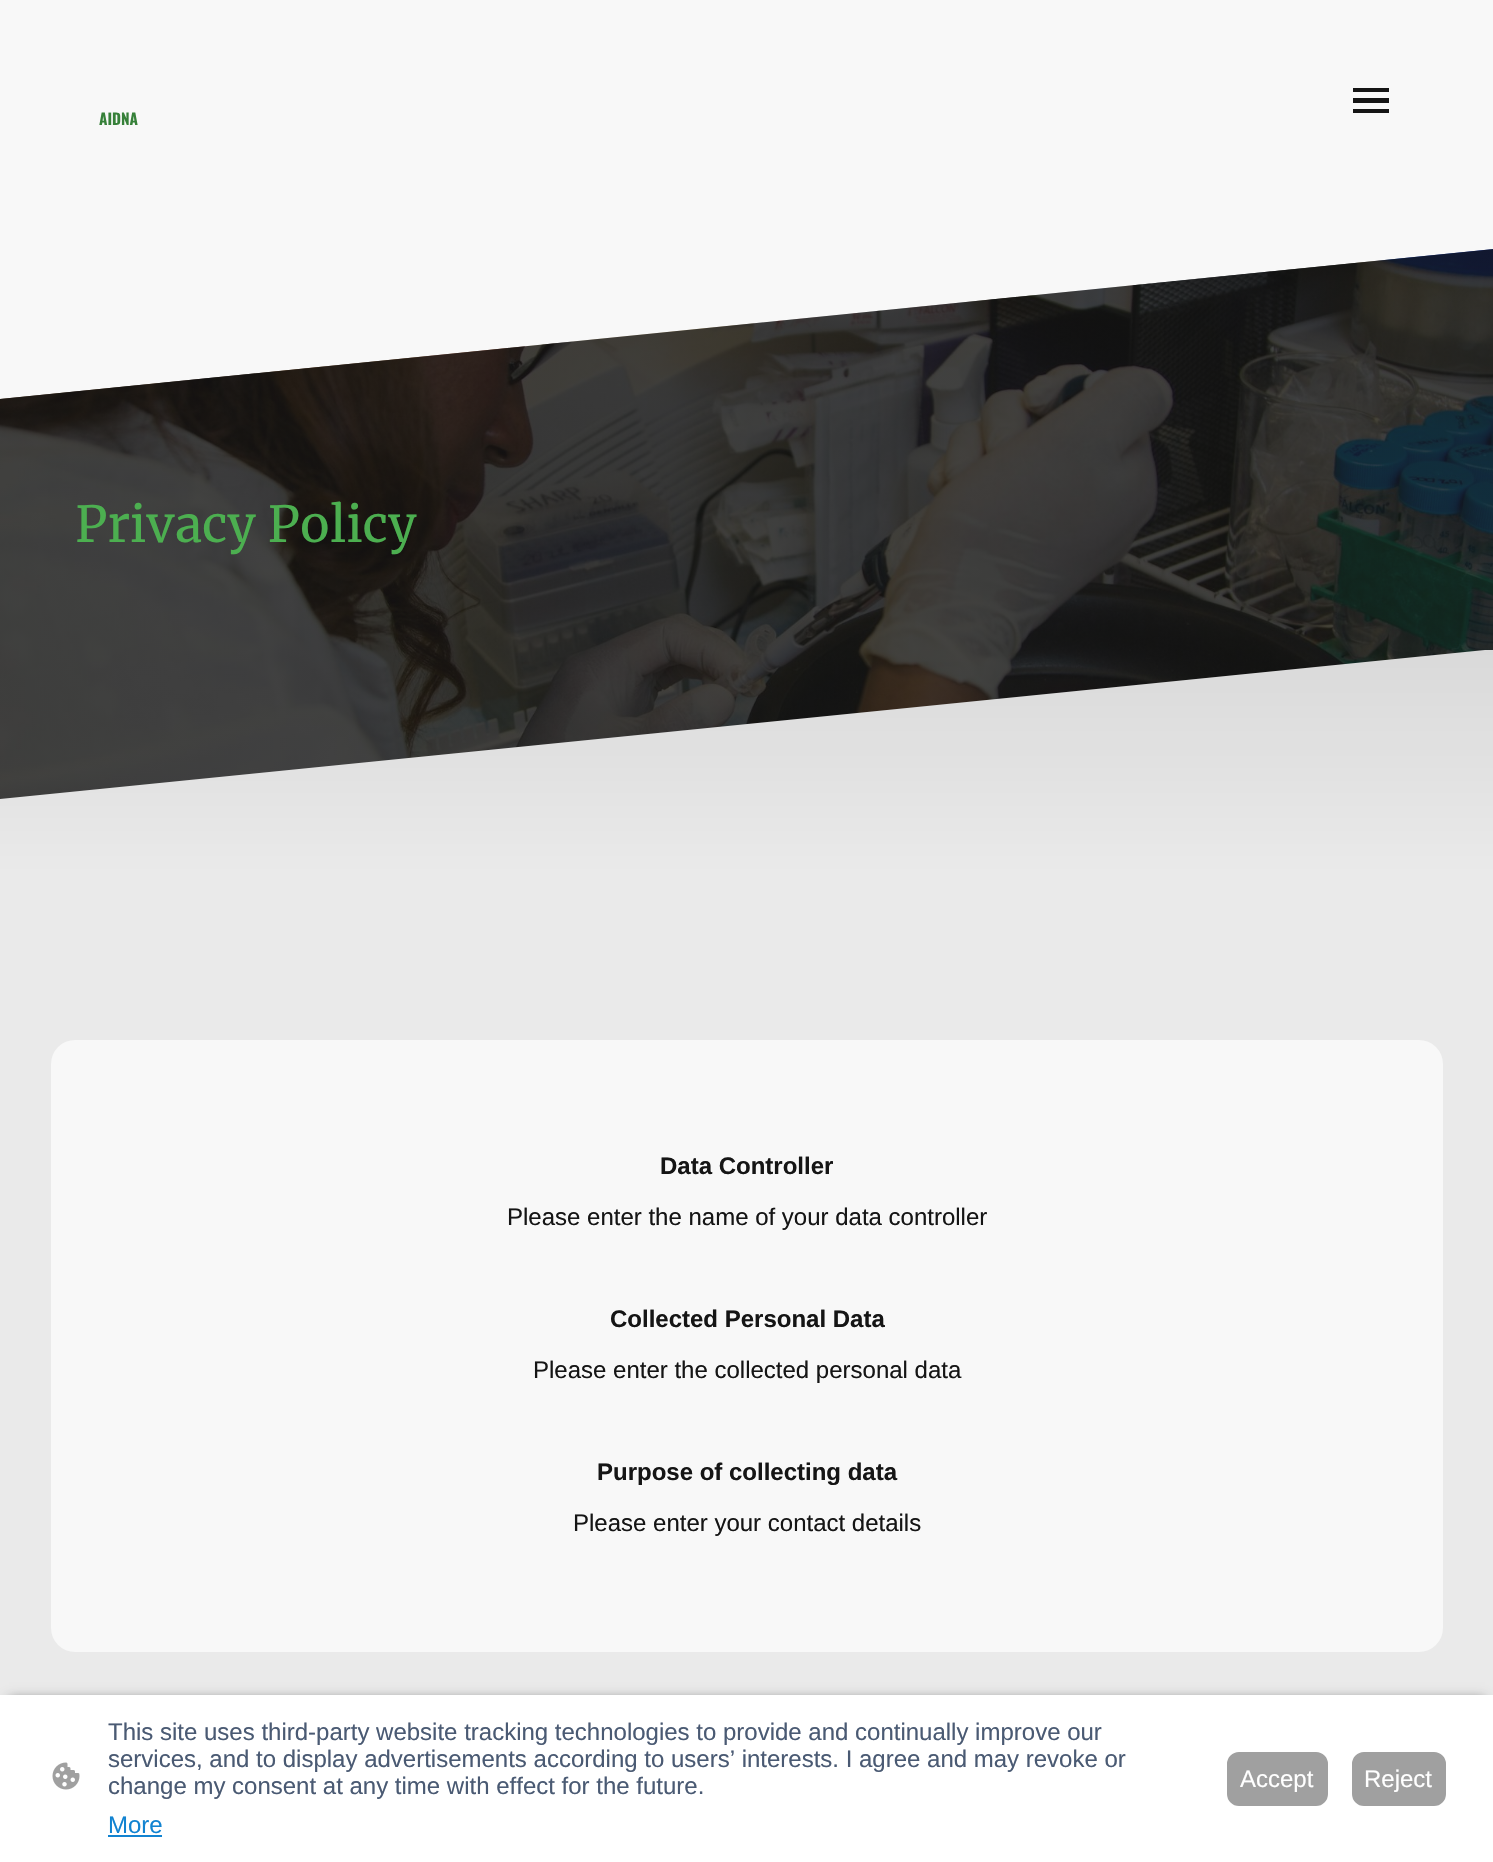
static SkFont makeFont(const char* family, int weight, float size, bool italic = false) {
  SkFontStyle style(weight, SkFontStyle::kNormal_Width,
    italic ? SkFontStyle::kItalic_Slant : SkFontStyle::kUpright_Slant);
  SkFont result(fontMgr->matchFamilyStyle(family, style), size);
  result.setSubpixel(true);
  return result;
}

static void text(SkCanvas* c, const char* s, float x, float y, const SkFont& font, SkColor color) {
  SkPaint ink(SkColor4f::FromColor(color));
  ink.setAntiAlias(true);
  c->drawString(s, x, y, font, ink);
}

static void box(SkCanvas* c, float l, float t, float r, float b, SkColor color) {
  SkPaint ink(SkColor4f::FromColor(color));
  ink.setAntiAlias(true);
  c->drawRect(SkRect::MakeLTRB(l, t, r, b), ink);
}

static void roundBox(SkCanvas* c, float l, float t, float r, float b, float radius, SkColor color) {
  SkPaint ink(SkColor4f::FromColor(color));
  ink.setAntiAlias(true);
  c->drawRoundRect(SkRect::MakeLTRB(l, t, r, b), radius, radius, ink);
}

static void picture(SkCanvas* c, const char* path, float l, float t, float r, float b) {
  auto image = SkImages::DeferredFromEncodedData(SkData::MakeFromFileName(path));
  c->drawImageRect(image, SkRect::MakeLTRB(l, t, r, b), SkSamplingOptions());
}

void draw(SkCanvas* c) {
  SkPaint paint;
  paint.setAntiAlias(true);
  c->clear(0xfff8f8f8);
  box(c, 1353, 88, 1389, 92, 0xff151515);
  box(c, 1353, 98, 1389, 103, 0xff151515);
  box(c, 1353, 109, 1389, 113, 0xff151515);
  picture(c, "img_01.png", 99, 112, 138, 125);
  picture(c, "img_02.png", 0, 249, 1493, 799);
  SkFont face1 = makeFont("Merriweather", 400, 49.5f);
  text(c, "Privacy Policy", 75, 542, face1, 0xff4caf50);
  paint.setColor(0xffeaeaea);
  c->drawPath(SkPathBuilder().moveTo(0, 799).lineTo(0, 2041).lineTo(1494, 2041).lineTo(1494, 650).lineTo(1485, 650).close().detach(), paint);
  {
    const SkColor colors[] = {0x12000000, 0x00000000};
    const float stops[] = {0, 1};
    const SkPoint ends[] = {{747, 649}, {747, 875}};
    paint.setShader(SkGradientShader::MakeLinear(ends, colors, stops, 2, SkTileMode::kClamp));
    paint.setAlpha(255);
  }
  c->drawPath(SkPathBuilder().moveTo(0, 799).lineTo(0, 875).lineTo(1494, 875).lineTo(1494, 650).lineTo(1485, 650).close().detach(), paint);
  roundBox(c, 51, 1040, 1443, 1652, 24, 0xfff8f8f8);
  SkFont face2 = makeFont("Liberation Sans", 700, 24);
  text(c, "Data Controller", 660, 1174, face2, 0xff151515);
  SkFont face3 = makeFont("Liberation Sans", 400, 24);
  text(c, "Please enter the name of your data controller", 507, 1225, face3, 0xff151515);
  text(c, "Collected Personal Data", 610, 1327, face2, 0xff151515);
  text(c, "Please enter the collected personal data", 533, 1378, face3, 0xff151515);
  text(c, "Purpose of collecting data", 597, 1480, face2, 0xff151515);
  text(c, "Please enter your contact details", 573, 1531, face3, 0xff151515);
  paint.setShader(nullptr);
  paint.setColor(0xa1000000);
  paint.setMaskFilter(SkMaskFilter::MakeBlur(kNormal_SkBlurStyle, 6));
  c->drawRect(SkRect::MakeLTRB(9, 1700, 1485, 1850), paint);
  paint.setMaskFilter(nullptr);
  box(c, 0, 1695, 1493, 1862, 0xffffffff);
  picture(c, "img_03.png", 52, 1762, 80, 1790);
  text(c, "This site uses third-party website tracking technologies to provide and continually improve our", 108, 1740, face3, 0xff4a5a73);
  text(c, "services, and to display advertisements according to users’ interests. I agree and may revoke or", 108, 1767, face3, 0xff4a5a73);
  text(c, "change my consent at any time with effect for the future.", 108, 1794, face3, 0xff4a5a73);
  text(c, "More", 108, 1833, face3, 0xff1183d1);
  box(c, 108, 1835, 162, 1837, 0xff1183d1);
  paint.setColor(0xffa0a0a0);
  c->drawRoundRect(SkRect::MakeLTRB(1228, 1753, 1327, 1805), 11, 11, paint);
  paint.setStyle(SkPaint::kStroke_Style);
  paint.setStrokeWidth(2);
  c->drawRoundRect(SkRect::MakeLTRB(1228, 1753, 1327, 1805), 11, 11, paint);
  text(c, "Accept", 1240, 1787, face3, 0xffffffff);
  paint.setStyle(SkPaint::kFill_Style);
  c->drawRoundRect(SkRect::MakeLTRB(1353, 1753, 1445, 1805), 11, 11, paint);
  paint.setStyle(SkPaint::kStroke_Style);
  c->drawRoundRect(SkRect::MakeLTRB(1353, 1753, 1445, 1805), 11, 11, paint);
  text(c, "Reject", 1364, 1787, face3, 0xffffffff);
}
